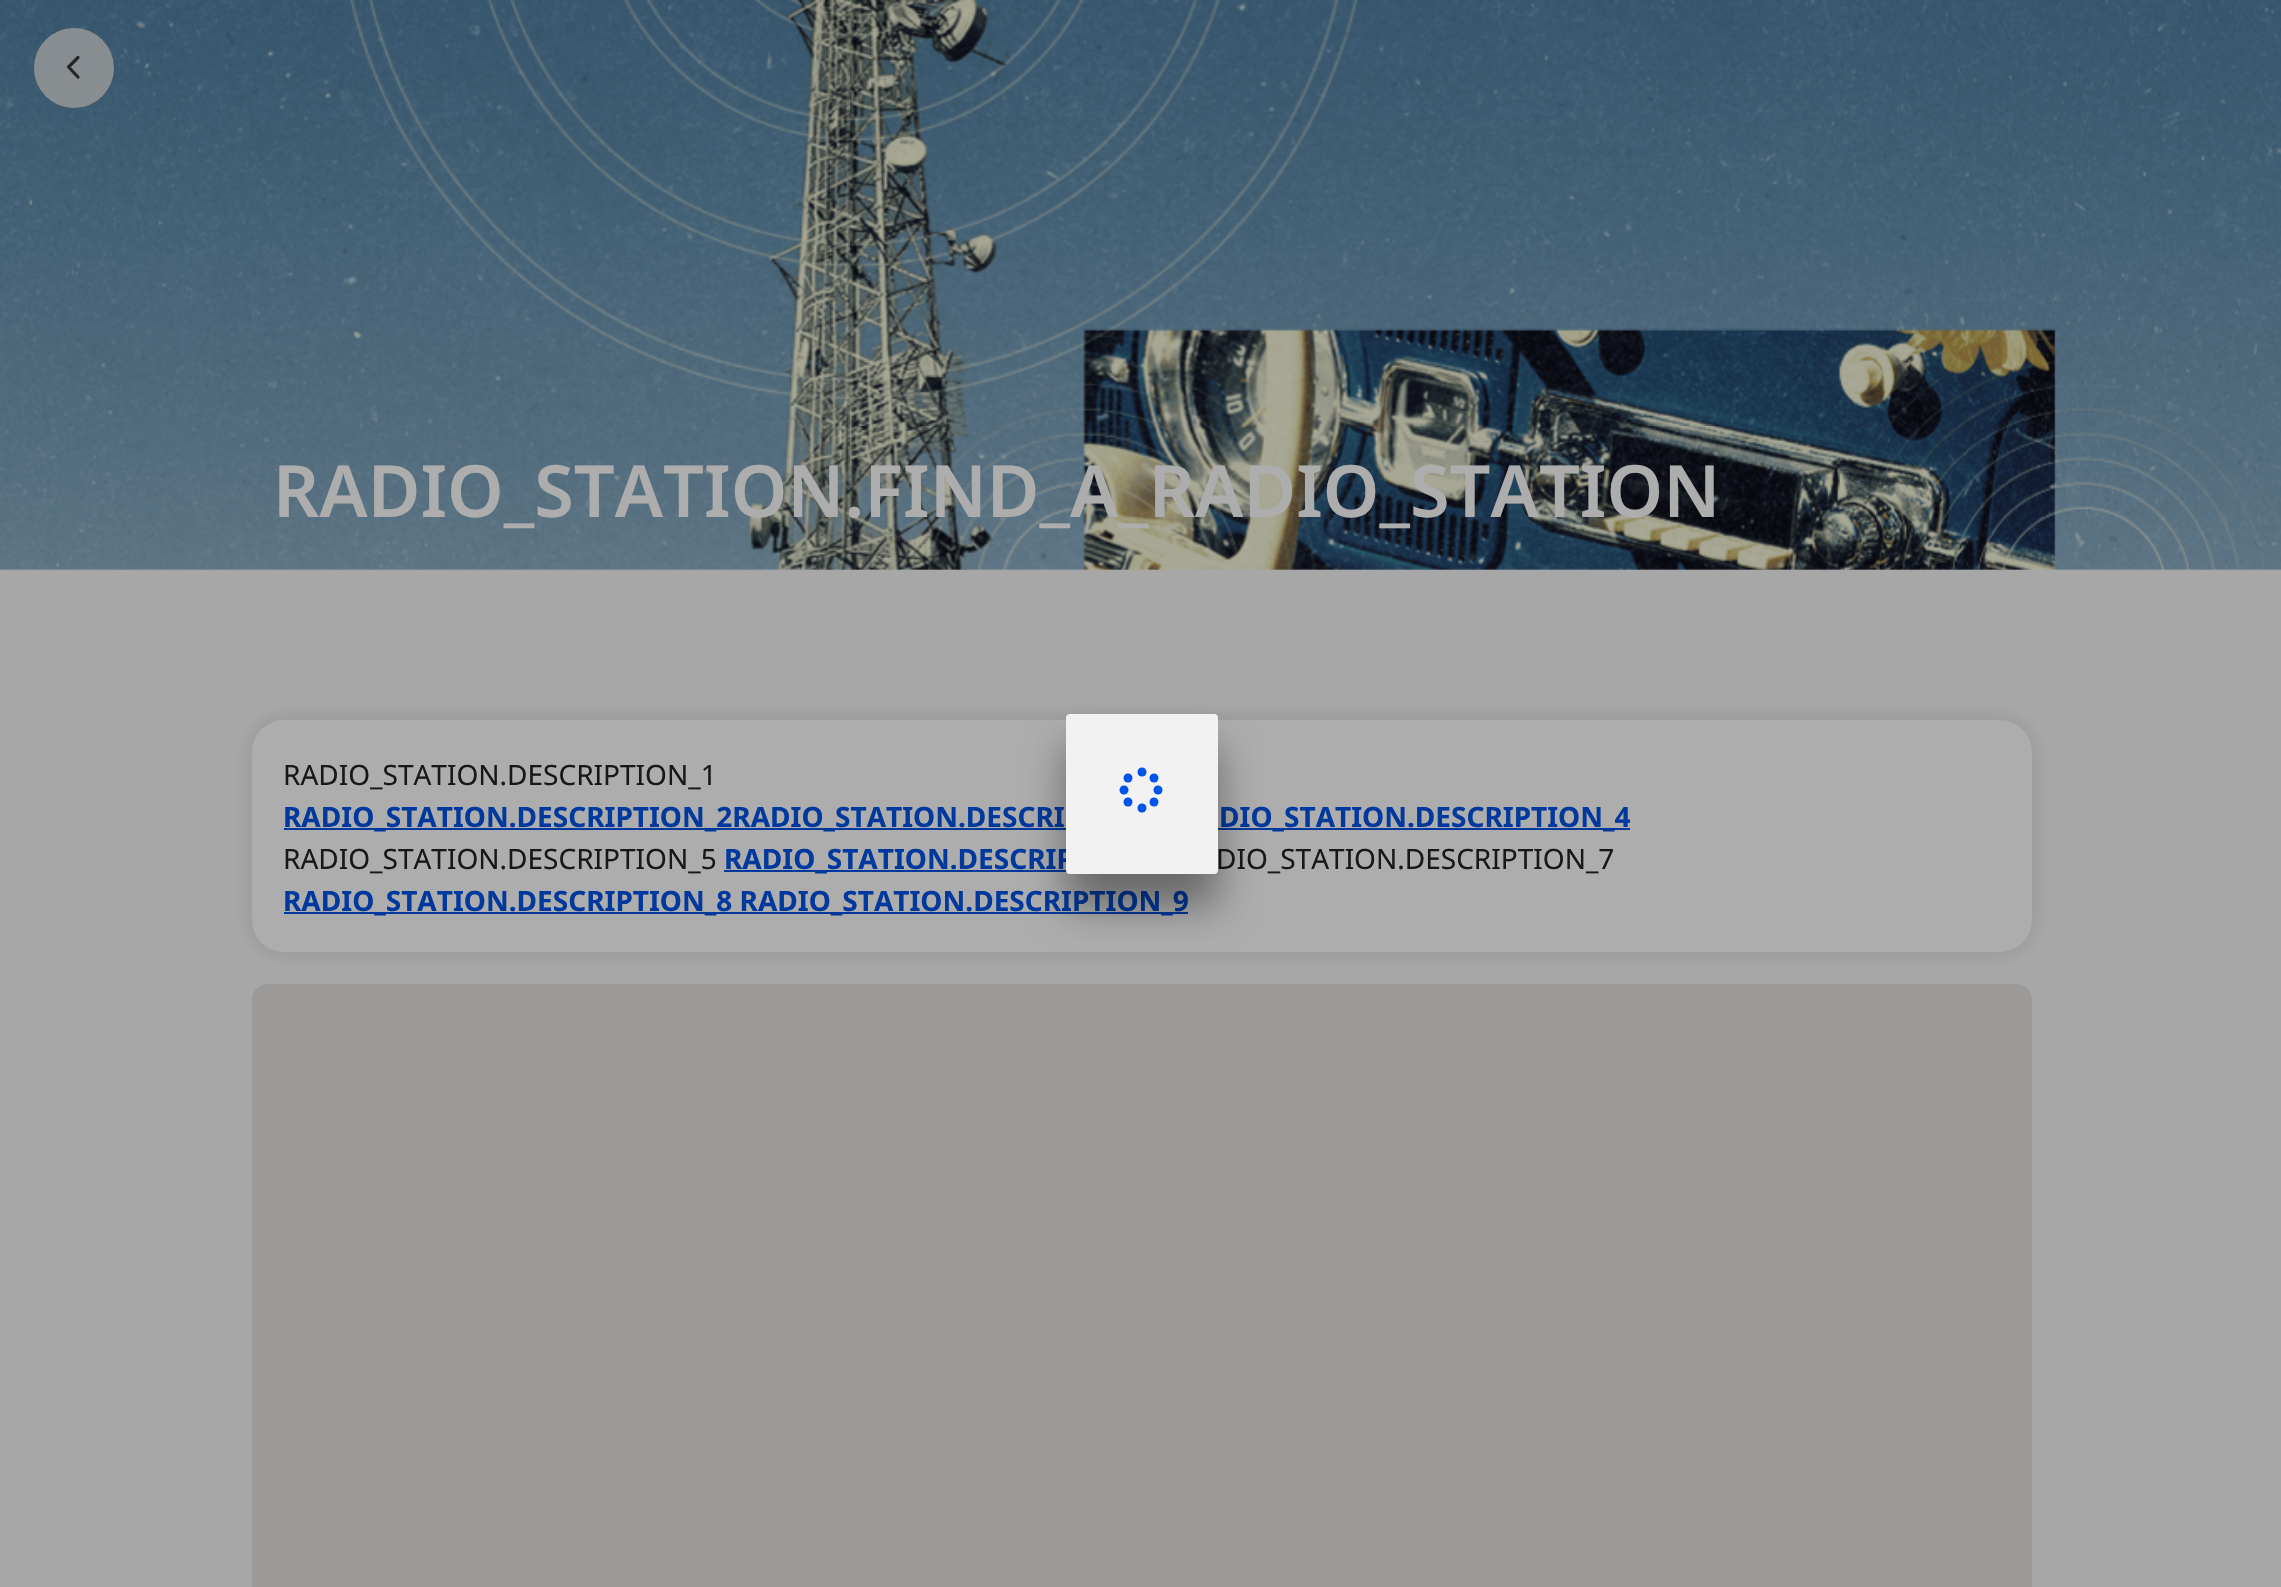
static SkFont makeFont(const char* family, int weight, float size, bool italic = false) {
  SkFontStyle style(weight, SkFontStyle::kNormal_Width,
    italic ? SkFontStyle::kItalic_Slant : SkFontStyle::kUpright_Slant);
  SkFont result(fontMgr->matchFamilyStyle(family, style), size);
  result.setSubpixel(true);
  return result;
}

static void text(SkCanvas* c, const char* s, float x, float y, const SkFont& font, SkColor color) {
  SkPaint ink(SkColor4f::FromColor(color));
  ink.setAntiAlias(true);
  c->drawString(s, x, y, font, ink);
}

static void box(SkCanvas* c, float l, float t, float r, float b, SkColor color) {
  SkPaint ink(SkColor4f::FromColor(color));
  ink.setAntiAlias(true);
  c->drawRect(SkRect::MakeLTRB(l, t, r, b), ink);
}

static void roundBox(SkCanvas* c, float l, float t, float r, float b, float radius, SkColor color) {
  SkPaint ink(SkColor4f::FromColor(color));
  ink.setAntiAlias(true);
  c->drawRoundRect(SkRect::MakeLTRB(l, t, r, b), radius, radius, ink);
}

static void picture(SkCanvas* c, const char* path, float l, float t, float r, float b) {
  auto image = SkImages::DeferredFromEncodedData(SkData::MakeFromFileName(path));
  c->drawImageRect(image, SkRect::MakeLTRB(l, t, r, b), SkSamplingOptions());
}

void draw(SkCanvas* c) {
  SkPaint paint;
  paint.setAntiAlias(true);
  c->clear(0xffa7a7a7);
  picture(c, "img_01.png", 0, 0, 2281, 570);
  paint.setColor(0xd4979797);
  c->drawCircle(74, 68, 40, paint);
  paint.setStyle(SkPaint::kStroke_Style);
  paint.setStrokeWidth(3.2f);
  paint.setStrokeCap(SkPaint::kRound_Cap);
  paint.setStrokeJoin(SkPaint::kRound_Join);
  paint.setColor(0xff262626);
  c->drawPath(SkPathBuilder().moveTo(78, 57.5f).lineTo(68.5f, 67).lineTo(78, 77).detach(), paint);
  SkFont face1 = makeFont("Noto Sans", 600, 72);
  text(c, "RADIO_STATION.FIND_A_RADIO_STATION", 273, 517, face1, 0xffadadad);
  paint.setStyle(SkPaint::kFill_Style);
  paint.setColor(0x241a1818);
  paint.setMaskFilter(SkMaskFilter::MakeBlur(kNormal_SkBlurStyle, 10));
  c->drawRoundRect(SkRect::MakeLTRB(252, 720, 2032, 952), 32, 32, paint);
  paint.setMaskFilter(nullptr);
  roundBox(c, 252, 720, 2032, 952, 32, 0xffadadad);
  SkFont face2 = makeFont("Noto Sans", 400, 28);
  text(c, "RADIO_STATION.DESCRIPTION_1", 283, 785, face2, 0xff17181b);
  box(c, 284, 828, 1066, 830, 0xff00399e);
  SkFont face3 = makeFont("Noto Sans", 700, 28);
  text(c, "RADIO_STATION.DESCRIPTION_2RADIO_STATION.DESCRI", 283, 827, face3, 0xff00399e);
  box(c, 1218, 828, 1630, 830, 0xff00399e);
  text(c, "DIO_STATION.DESCRIPTION_4", 1219, 827, face3, 0xff00399e);
  text(c, "RADIO_STATION.DESCRIPTION_5", 283, 869, face2, 0xff17181b);
  box(c, 724, 870, 1067, 872, 0xff00399e);
  text(c, "RADIO_STATION.DESCRIP", 724, 869, face3, 0xff00399e);
  text(c, "DIO_STATION.DESCRIPTION_7", 1216, 869, face2, 0xff17181b);
  box(c, 284, 912, 1188, 914, 0xff00399e);
  text(c, "RADIO_STATION.DESCRIPTION_8 RADIO_STATION.DESCRIPTION_9", 283, 911, face3, 0xff00399e);
  paint.setColor(0xff9c9a98);
  c->drawPath(SkPathBuilder().moveTo(268, 984).lineTo(2016, 984).cubicTo(2025, 984, 2032, 991, 2032, 1000).lineTo(2032, 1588).lineTo(252, 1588).lineTo(252, 1000).cubicTo(252, 991, 259, 984, 268, 984).close().detach(), paint);
  paint.setColor(0x66000000);
  paint.setMaskFilter(SkMaskFilter::MakeBlur(kNormal_SkBlurStyle, 20));
  c->drawRoundRect(SkRect::MakeLTRB(1066, 746, 1218, 906), 4, 4, paint);
  paint.setMaskFilter(nullptr);
  roundBox(c, 1066, 714, 1218, 874, 4, 0xfff2f2f2);
  paint.setColor(0xff0054e9);
  c->drawCircle(1142, 772, 4.5f, paint);
  c->drawCircle(1128, 778, 4.5f, paint);
  c->drawCircle(1154, 778, 4.5f, paint);
  c->drawCircle(1124, 790, 4.5f, paint);
  c->drawCircle(1158, 790, 4.5f, paint);
  c->drawCircle(1128, 802, 4.5f, paint);
  c->drawCircle(1154, 802, 4.5f, paint);
  c->drawCircle(1142, 808, 4.5f, paint);
}
